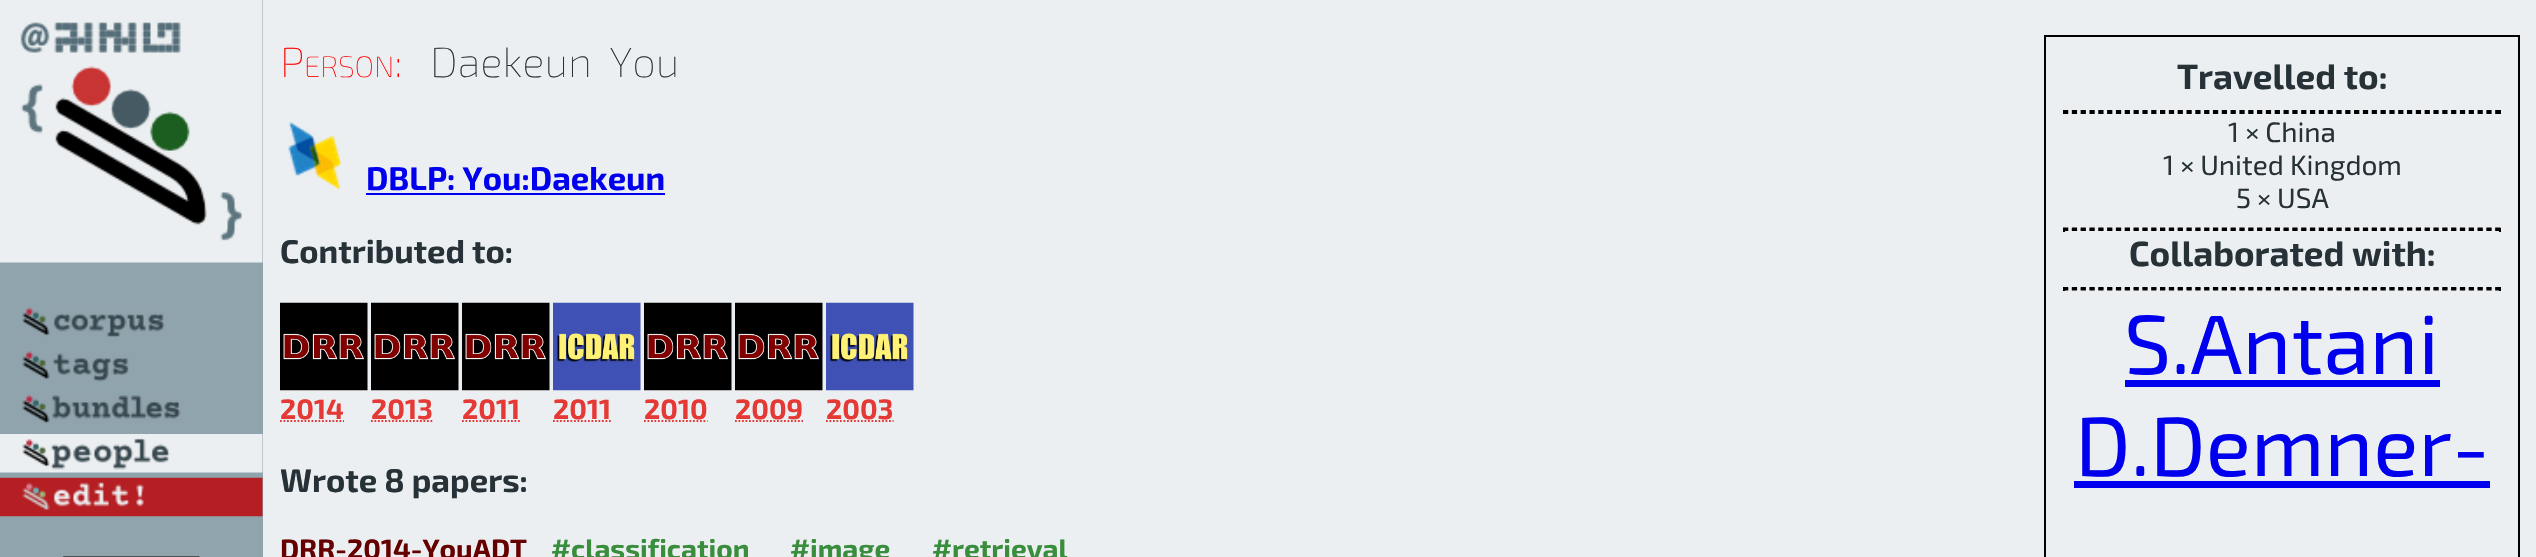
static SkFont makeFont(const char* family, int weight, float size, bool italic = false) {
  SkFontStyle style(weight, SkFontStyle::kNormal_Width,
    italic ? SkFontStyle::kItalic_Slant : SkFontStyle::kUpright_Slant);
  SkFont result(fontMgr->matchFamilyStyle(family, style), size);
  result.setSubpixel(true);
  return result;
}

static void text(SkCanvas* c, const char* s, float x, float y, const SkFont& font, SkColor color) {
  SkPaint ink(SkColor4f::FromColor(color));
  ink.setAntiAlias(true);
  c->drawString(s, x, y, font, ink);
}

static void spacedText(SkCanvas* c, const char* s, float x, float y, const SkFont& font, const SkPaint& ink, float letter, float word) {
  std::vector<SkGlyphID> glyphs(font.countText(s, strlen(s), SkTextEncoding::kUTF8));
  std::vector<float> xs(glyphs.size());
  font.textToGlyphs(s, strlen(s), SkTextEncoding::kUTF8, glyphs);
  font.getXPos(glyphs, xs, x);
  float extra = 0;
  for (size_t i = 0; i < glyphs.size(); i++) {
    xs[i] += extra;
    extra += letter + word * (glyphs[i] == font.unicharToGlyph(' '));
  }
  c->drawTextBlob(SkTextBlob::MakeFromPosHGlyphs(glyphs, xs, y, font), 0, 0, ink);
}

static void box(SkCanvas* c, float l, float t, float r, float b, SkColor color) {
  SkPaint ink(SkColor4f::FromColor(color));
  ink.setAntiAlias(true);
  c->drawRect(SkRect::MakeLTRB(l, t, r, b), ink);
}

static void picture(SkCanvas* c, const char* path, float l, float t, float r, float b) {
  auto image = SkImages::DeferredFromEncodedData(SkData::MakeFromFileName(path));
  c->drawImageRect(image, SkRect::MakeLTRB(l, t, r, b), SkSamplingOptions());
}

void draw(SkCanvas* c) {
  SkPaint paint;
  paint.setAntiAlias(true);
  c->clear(0xffeceff1);
  box(c, 0, 0, 263, 557, 0xff90a4ae);
  picture(c, "img_01.png", 0, 0, 263, 263);
  picture(c, "img_02.png", 22, 307, 165, 337);
  picture(c, "img_03.png", 22, 351, 129, 382);
  picture(c, "img_04.png", 22, 395, 181, 424);
  picture(c, "img_05.png", 0, 434, 263, 473);
  picture(c, "img_06.png", 0, 477, 263, 517);
  picture(c, "img_07.png", 62, 556, 200, 557);
  SkFont face1 = makeFont("Exo 2", 100, 42);
  text(c, "P", 280, 77, face1, 0xffff0000);
  SkFont face2 = makeFont("Exo 2", 100, 29.5f);
  text(c, "ERSON", 304, 77, face2, 0xffff0000);
  text(c, ":", 394, 77, face1, 0xffff0000);
  paint.setColor(0xff263238);
  spacedText(c, "Daekeun You", 430, 77, face1, paint, 0, 8);
  paint.setStyle(SkPaint::kStroke_Style);
  paint.setStrokeWidth(2);
  paint.setColor(0xff000000);
  c->drawRect(SkRect::MakeLTRB(2045, 36, 2519, 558), paint);
  SkFont face3 = makeFont("Exo 2", 700, 35);
  text(c, "Travelled to:", 2177, 89, face3, 0xff263238);
  paint.setStrokeWidth(1.8f);
  paint.setPathEffect(SkDashPathEffect::Make({{5.25f, 3.57f}}, 0));
  c->drawPath(SkPathBuilder().moveTo(2063, 111).lineTo(2501, 111).detach(), paint);
  paint.setPathEffect(nullptr);
  box(c, 2499, 110, 2501, 114, 0xff000000);
  paint.setPathEffect(SkDashPathEffect::Make({{5.25f, 3.57f}}, 0));
  c->drawPath(SkPathBuilder().moveTo(2063, 113).lineTo(2501, 113).detach(), paint);
  paint.setPathEffect(nullptr);
  box(c, 2063, 110, 2065, 114, 0xff000000);
  SkFont face4 = makeFont("Exo 2", 400, 28);
  text(c, "1 × China", 2228, 142, face4, 0xff263238);
  text(c, "1 × United Kingdom", 2163, 175, face4, 0xff263238);
  text(c, "5 × USA", 2236, 208, face4, 0xff263238);
  paint.setPathEffect(SkDashPathEffect::Make({{5.25f, 3.57f}}, 0));
  c->drawPath(SkPathBuilder().moveTo(2063, 228.5f).lineTo(2501, 228.5f).detach(), paint);
  paint.setPathEffect(nullptr);
  box(c, 2499, 228, 2501, 232, 0xff000000);
  paint.setPathEffect(SkDashPathEffect::Make({{5.25f, 3.57f}}, 0));
  c->drawPath(SkPathBuilder().moveTo(2063, 230).lineTo(2501, 230).detach(), paint);
  paint.setPathEffect(nullptr);
  box(c, 2063, 228, 2065, 232, 0xff000000);
  text(c, "Collaborated with:", 2129, 266, face3, 0xff263238);
  paint.setPathEffect(SkDashPathEffect::Make({{5.25f, 3.57f}}, 0));
  c->drawPath(SkPathBuilder().moveTo(2063, 288).lineTo(2501, 288).detach(), paint);
  paint.setPathEffect(nullptr);
  box(c, 2499, 287, 2501, 291, 0xff000000);
  paint.setPathEffect(SkDashPathEffect::Make({{5.25f, 3.57f}}, 0));
  c->drawPath(SkPathBuilder().moveTo(2063, 289.5f).lineTo(2501, 289.5f).detach(), paint);
  paint.setPathEffect(nullptr);
  box(c, 2063, 287, 2065, 291, 0xff000000);
  SkFont face5 = makeFont("Exo 2", 400, 84);
  text(c, "S.Antani", 2124, 374, face5, 0xff0000ee);
  box(c, 2125, 380, 2440, 387, 0xff0000ee);
  text(c, "D.Demner-", 2075, 476, face5, 0xff0000ee);
  box(c, 2074, 481, 2490, 488, 0xff0000ee);
  picture(c, "img_08.png", 288, 122, 342, 190);
  SkFont face6 = makeFont("Exo 2", 700, 32.75f);
  text(c, "DBLP: You:Daekeun", 366, 190, face6, 0xff0000ee);
  box(c, 366, 193, 665, 195, 0xff0000ee);
  text(c, "Contributed to:", 280, 263, face6, 0xff263238);
  picture(c, "img_09.png", 280, 302, 368, 391);
  SkFont face7 = makeFont("Exo 2", 700, 28);
  text(c, "2014", 280, 419, face7, 0xffe53935);
  paint.setColor(0xffe53935);
  paint.setPathEffect(SkDashPathEffect::Make({{1.75f, 1.75f}}, 0));
  c->drawPath(SkPathBuilder().moveTo(280, 421).lineTo(344, 421).detach(), paint);
  paint.setPathEffect(nullptr);
  picture(c, "img_10.png", 371, 302, 459, 391);
  text(c, "2013", 371, 419, face7, 0xffe53935);
  paint.setPathEffect(SkDashPathEffect::Make({{1.75f, 1.75f}}, 0));
  c->drawPath(SkPathBuilder().moveTo(371, 421).lineTo(433, 421).detach(), paint);
  paint.setPathEffect(nullptr);
  picture(c, "img_10.png", 462, 302, 550, 391);
  text(c, "2011", 462, 419, face7, 0xffe53935);
  paint.setPathEffect(SkDashPathEffect::Make({{1.75f, 1.75f}}, 0));
  c->drawPath(SkPathBuilder().moveTo(462, 421).lineTo(520, 421).detach(), paint);
  paint.setPathEffect(nullptr);
  picture(c, "img_11.png", 553, 302, 641, 391);
  text(c, "2011", 553, 419, face7, 0xffe53935);
  paint.setPathEffect(SkDashPathEffect::Make({{1.75f, 1.75f}}, 0));
  c->drawPath(SkPathBuilder().moveTo(553, 421).lineTo(611, 421).detach(), paint);
  paint.setPathEffect(nullptr);
  picture(c, "img_10.png", 644, 302, 732, 391);
  text(c, "2010", 644, 419, face7, 0xffe53935);
  paint.setPathEffect(SkDashPathEffect::Make({{1.75f, 1.75f}}, 0));
  c->drawPath(SkPathBuilder().moveTo(644, 421).lineTo(707.5f, 421).detach(), paint);
  paint.setPathEffect(nullptr);
  picture(c, "img_10.png", 735, 302, 823, 391);
  text(c, "2009", 735, 419, face7, 0xffe53935);
  paint.setPathEffect(SkDashPathEffect::Make({{1.75f, 1.75f}}, 0));
  c->drawPath(SkPathBuilder().moveTo(735, 421).lineTo(803, 421).detach(), paint);
  paint.setPathEffect(nullptr);
  picture(c, "img_11.png", 826, 302, 914, 391);
  text(c, "2003", 826, 419, face7, 0xffe53935);
  paint.setPathEffect(SkDashPathEffect::Make({{1.75f, 1.75f}}, 0));
  c->drawPath(SkPathBuilder().moveTo(826, 421).lineTo(893.5f, 421).detach(), paint);
  paint.setPathEffect(nullptr);
  text(c, "Wrote 8 papers:", 280, 492, face6, 0xff263238);
  text(c, "DRR-2014-YouADT", 280, 559, face7, 0xff660000);
  text(c, "#classification", 551, 559, face7, 0xff388e3c);
  text(c, "#image", 790, 559, face7, 0xff388e3c);
  text(c, "#retrieval", 932, 559, face7, 0xff388e3c);
}
